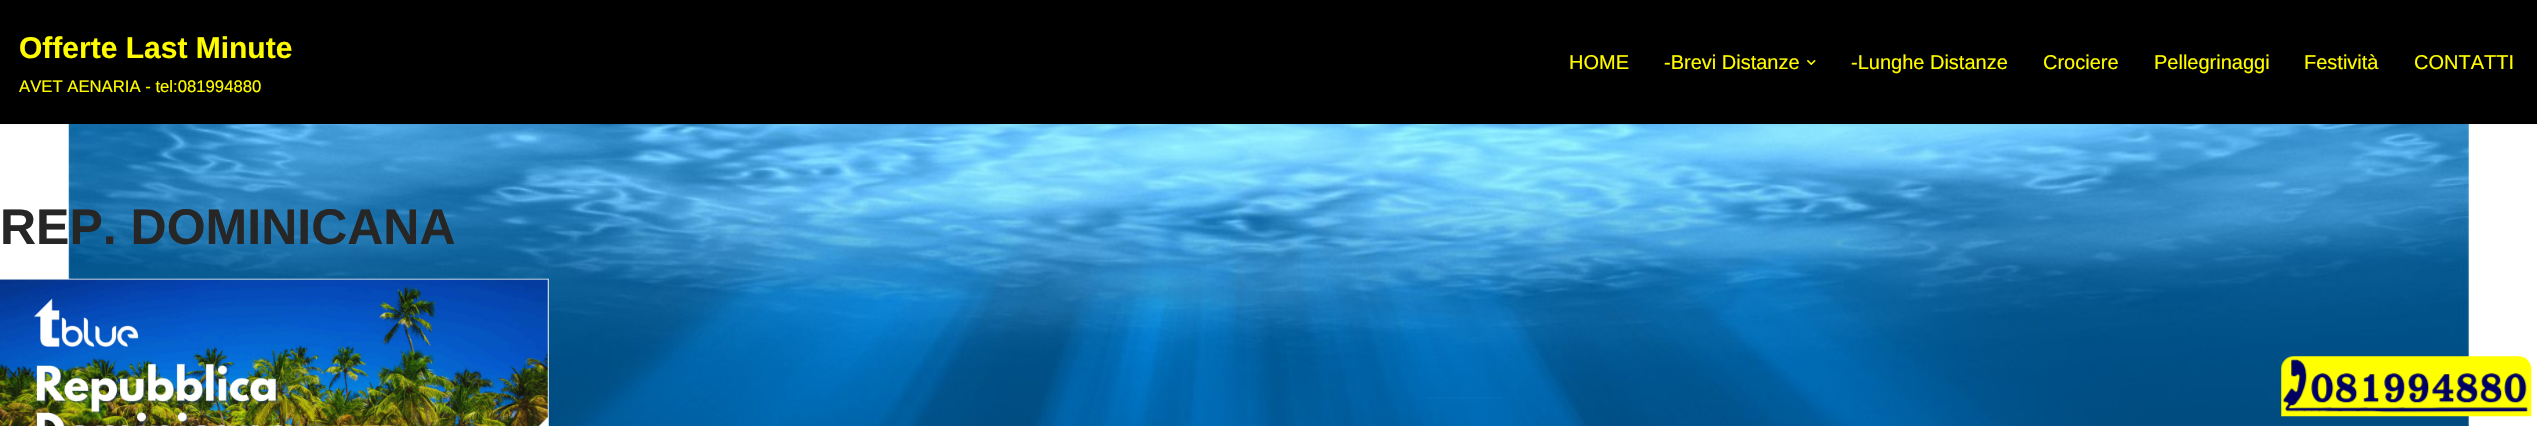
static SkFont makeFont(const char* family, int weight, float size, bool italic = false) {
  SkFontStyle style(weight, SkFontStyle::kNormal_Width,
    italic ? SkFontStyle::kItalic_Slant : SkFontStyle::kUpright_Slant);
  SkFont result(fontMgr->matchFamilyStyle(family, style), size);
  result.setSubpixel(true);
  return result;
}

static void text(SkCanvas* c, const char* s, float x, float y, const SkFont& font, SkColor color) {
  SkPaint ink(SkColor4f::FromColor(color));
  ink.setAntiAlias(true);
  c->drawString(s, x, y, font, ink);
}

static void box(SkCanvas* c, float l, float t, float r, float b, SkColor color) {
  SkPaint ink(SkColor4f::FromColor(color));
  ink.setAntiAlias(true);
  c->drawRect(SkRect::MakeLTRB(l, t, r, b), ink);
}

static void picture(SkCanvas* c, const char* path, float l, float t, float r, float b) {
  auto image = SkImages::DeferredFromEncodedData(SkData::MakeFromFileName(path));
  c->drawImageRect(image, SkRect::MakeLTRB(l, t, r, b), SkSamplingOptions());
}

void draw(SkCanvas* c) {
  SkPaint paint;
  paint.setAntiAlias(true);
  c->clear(0xffffffff);
  picture(c, "img_01.png", 68, 124, 2469, 426);
  paint.setColor(0x1a000000);
  paint.setMaskFilter(SkMaskFilter::MakeBlur(kNormal_SkBlurStyle, 2));
  c->drawRect(SkRect::MakeLTRB(0, -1, 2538, 123), paint);
  paint.setMaskFilter(nullptr);
  box(c, 0, 0, 2537, 124, 0xff000000);
  SkFont face1 = makeFont("Liberation Sans", 700, 30);
  text(c, "Offerte Last Minute", 19, 58, face1, 0xfffffc00);
  SkFont face2 = makeFont("Liberation Sans", 400, 16.7f);
  text(c, "AVET AENARIA - tel:081994880", 19, 92, face2, 0xfffffc00);
  SkFont face3 = makeFont("Liberation Sans", 400, 20);
  text(c, "HOME", 1569, 69, face3, 0xfffffc00);
  text(c, "-Brevi Distanze", 1664, 69, face3, 0xfffffc00);
  picture(c, "img_02.png", 1807, 60, 1816, 65);
  text(c, "-Lunghe Distanze", 1851, 69, face3, 0xfffffc00);
  text(c, "Crociere", 2043, 69, face3, 0xfffffc00);
  text(c, "Pellegrinaggi", 2154, 69, face3, 0xfffffc00);
  text(c, "Festività", 2304, 69, face3, 0xfffffc00);
  text(c, "CONTATTI", 2414, 69, face3, 0xfffffc00);
  SkFont face4 = makeFont("Liberation Sans", 700, 50);
  text(c, "REP. DOMINICANA", 0, 244, face4, 0xff272626);
  picture(c, "img_03.png", 0, 278, 549, 426);
  picture(c, "img_04.png", 2281, 356, 2532, 417);
}
